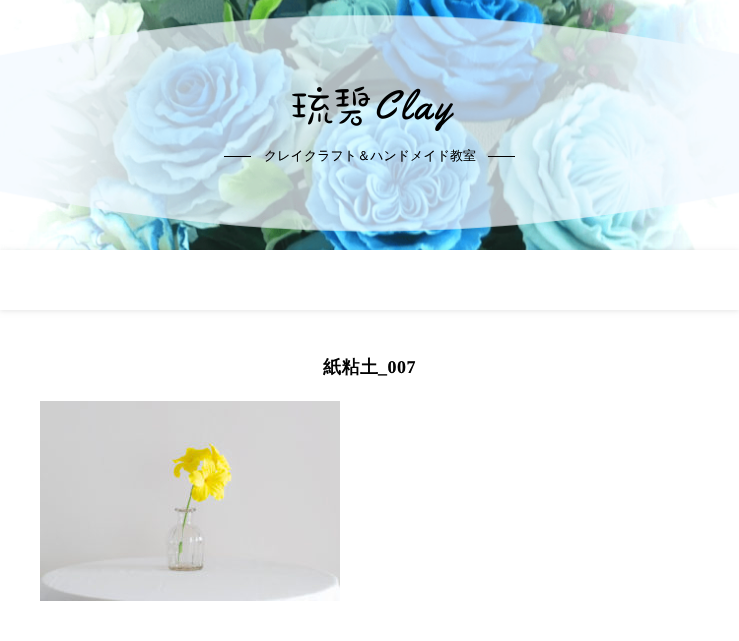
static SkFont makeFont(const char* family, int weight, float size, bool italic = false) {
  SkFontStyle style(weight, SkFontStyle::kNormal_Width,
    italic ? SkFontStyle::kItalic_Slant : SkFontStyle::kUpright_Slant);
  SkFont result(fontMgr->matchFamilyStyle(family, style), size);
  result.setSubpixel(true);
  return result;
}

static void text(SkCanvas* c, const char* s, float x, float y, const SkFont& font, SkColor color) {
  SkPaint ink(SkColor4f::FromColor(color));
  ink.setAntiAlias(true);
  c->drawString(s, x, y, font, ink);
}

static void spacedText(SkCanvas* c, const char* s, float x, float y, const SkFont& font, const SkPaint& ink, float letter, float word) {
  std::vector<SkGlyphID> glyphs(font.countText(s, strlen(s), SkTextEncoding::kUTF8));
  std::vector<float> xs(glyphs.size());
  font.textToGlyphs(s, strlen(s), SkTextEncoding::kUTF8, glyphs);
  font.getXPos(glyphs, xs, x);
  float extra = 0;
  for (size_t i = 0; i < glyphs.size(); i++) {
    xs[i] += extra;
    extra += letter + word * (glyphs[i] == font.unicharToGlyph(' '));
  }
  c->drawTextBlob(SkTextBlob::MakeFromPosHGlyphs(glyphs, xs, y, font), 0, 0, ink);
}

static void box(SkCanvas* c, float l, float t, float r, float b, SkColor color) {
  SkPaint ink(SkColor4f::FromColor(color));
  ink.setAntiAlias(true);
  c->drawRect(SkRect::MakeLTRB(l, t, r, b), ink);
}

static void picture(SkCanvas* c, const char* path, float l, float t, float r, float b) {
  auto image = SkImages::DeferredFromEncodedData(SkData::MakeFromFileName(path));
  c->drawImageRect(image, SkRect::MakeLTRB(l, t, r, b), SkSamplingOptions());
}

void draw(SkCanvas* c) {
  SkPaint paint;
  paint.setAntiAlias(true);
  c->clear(0xffffffff);
  picture(c, "img_01.png", 0, 0, 739, 250);
  picture(c, "img_02.png", 292, 86, 454, 131);
  box(c, 224, 156, 251, 157, 0xff000000);
  SkFont face1 = makeFont("WenQuanYi Zen Hei", 500, 13);
  text(c, "クレイクラフト＆ハンドメイド教室", 264, 160, face1, 0xff030303);
  box(c, 488, 156, 515, 157, 0xff000000);
  c->save();
  c->clipPath(SkPathBuilder(SkPathFillType::kEvenOdd).moveTo(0, 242).lineTo(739, 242).lineTo(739, 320).lineTo(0, 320).close().moveTo(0, 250).lineTo(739, 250).lineTo(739, 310).lineTo(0, 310).close().detach(), true);
  paint.setColor(0x1a000000);
  paint.setMaskFilter(SkMaskFilter::MakeBlur(kNormal_SkBlurStyle, 2.5f));
  c->drawRect(SkRect::MakeLTRB(0, 251, 739, 311), paint);
  paint.setMaskFilter(nullptr);
  c->restore();
  SkFont face2 = makeFont("WenQuanYi Zen Hei", 700, 18);
  paint.setColor(0xff030303);
  spacedText(c, "紙粘土", 323, 373, face2, paint, 0.5f, 0);
  SkFont face3 = makeFont("Liberation Serif", 700, 18);
  spacedText(c, "_007", 378, 373, face3, paint, 0.5f, 0);
  picture(c, "img_03.png", 40, 401, 340, 601);
}
